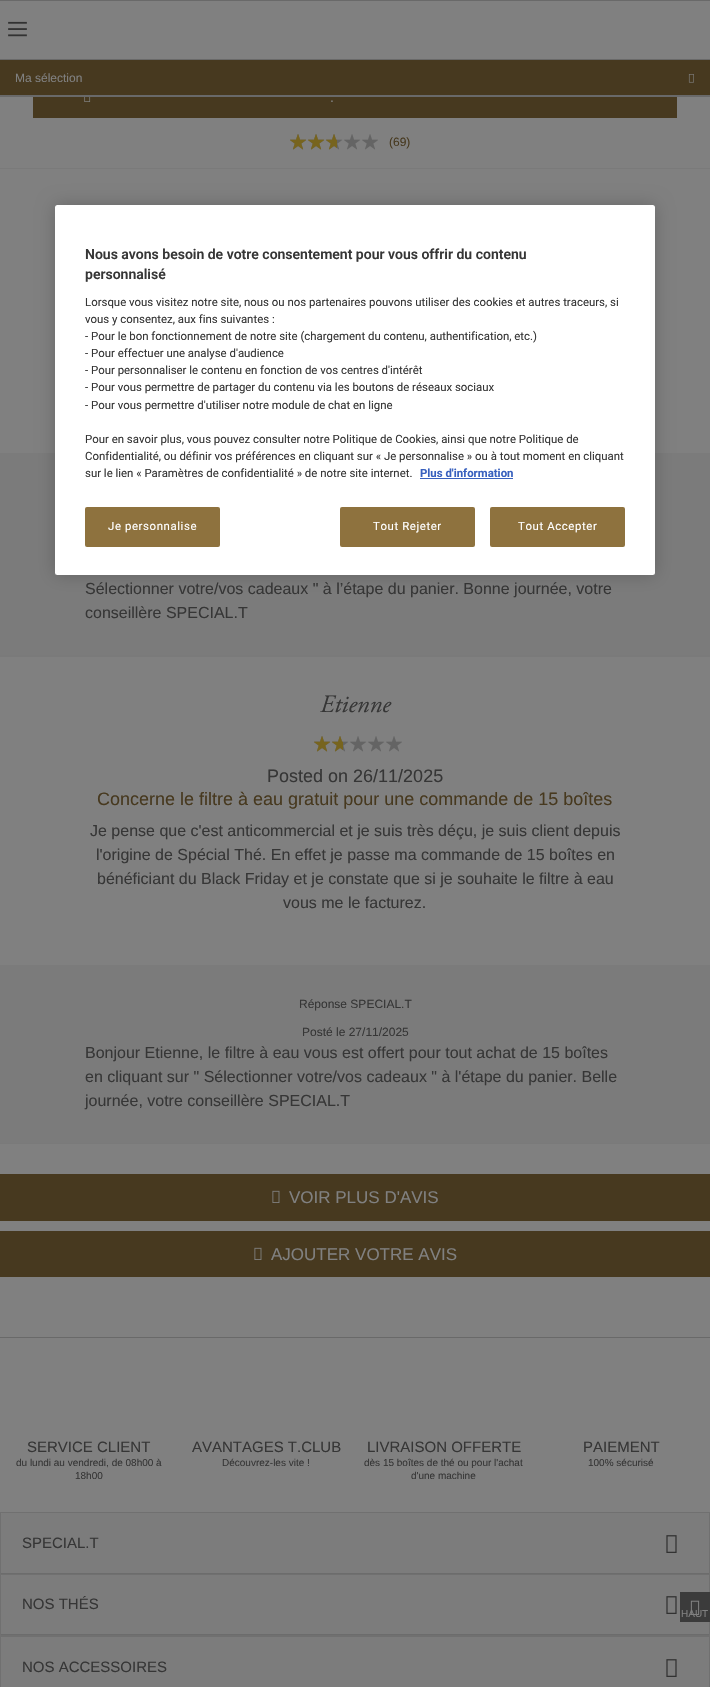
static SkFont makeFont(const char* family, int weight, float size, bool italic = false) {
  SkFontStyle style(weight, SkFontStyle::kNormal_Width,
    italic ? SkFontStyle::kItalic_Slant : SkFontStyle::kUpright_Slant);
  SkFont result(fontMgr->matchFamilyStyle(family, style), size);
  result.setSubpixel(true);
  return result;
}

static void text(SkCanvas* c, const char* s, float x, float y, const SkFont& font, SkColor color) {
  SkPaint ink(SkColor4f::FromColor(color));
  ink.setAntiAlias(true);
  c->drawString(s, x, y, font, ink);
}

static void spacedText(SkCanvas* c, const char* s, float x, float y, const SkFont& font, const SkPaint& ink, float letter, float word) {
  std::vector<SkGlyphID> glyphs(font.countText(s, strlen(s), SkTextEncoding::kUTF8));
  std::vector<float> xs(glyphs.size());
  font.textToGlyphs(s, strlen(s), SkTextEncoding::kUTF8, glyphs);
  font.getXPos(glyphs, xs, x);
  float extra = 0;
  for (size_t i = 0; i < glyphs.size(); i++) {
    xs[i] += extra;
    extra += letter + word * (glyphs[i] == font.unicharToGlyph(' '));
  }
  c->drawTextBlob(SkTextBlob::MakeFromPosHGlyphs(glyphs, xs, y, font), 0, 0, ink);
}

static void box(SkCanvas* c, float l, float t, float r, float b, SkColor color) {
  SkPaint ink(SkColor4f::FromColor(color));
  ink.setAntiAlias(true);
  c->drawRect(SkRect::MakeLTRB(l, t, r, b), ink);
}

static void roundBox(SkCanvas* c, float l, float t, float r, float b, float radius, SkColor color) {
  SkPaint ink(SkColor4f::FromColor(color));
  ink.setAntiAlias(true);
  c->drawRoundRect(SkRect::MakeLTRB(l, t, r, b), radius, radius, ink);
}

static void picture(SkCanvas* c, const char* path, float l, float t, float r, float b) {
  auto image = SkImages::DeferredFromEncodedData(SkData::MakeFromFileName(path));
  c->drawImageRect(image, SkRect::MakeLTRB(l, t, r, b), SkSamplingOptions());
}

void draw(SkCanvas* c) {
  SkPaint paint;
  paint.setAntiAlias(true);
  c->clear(0xff808080);
  box(c, 0, 0, 710, 1, 0xff696969);
  box(c, 0, 59, 710, 60, 0xff696969);
  picture(c, "img_01.png", 8, 21, 27, 37);
  box(c, 0, 60, 710, 95, 0xff47391f);
  SkFont face1 = makeFont("Liberation Sans", 400, 12);
  text(c, "Ma sélection", 15, 82, face1, 0xff808080);
  picture(c, "img_02.png", 688, 74, 694, 83);
  box(c, 0, 95, 710, 97, 0xff696969);
  box(c, 33, 97, 677, 118, 0xff47391f);
  picture(c, "img_03.png", 84, 97, 91, 102);
  SkFont face2 = makeFont("Liberation Sans", 400, 14);
  text(c, ".", 330, 102, face2, 0xff808080);
  picture(c, "img_04.png", 290, 134, 378, 150);
  picture(c, "img_05.png", 290, 134, 337, 150);
  text(c, "(69)", 389, 146, face1, 0xff47391f);
  box(c, 0, 168, 710, 169, 0xff7a7a7a);
  box(c, 0, 655, 710, 657, 0xff7a7a7a);
  box(c, 0, 453, 710, 655, 0xff7b7b7b);
  SkFont face3 = makeFont("Liberation Sans", 400, 16);
  text(c, "Sélectionner votre/vos cadeaux \" à l’étape du panier. Bonne journée, votre", 85, 594, face3, 0xff363636);
  text(c, "conseillère SPECIAL.T", 85, 618, face3, 0xff363636);
  box(c, 0, 1143, 710, 1144, 0xff7a7a7a);
  SkFont face4 = makeFont("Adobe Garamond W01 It", 400, 25);
  text(c, "Etienne", 320, 712, face4, 0xff363636);
  picture(c, "img_04.png", 314, 736, 402, 752);
  picture(c, "img_06.png", 314, 736, 343, 752);
  SkFont face5 = makeFont("Liberation Sans", 400, 18);
  text(c, "Posted on 26/11/2025", 267, 782, face5, 0xff363636);
  text(c, "Concerne le filtre à eau gratuit pour une commande de 15 boîtes", 97, 805, face5, 0xff47391f);
  text(c, "Je pense que c'est anticommercial et je suis très déçu, je suis client depuis", 90, 836, face3, 0xff363636);
  text(c, "l'origine de Spécial Thé. En effet je passe ma commande de 15 boîtes en", 96, 860, face3, 0xff363636);
  text(c, "bénéficiant du Black Friday et je constate que si je souhaite le filtre à eau", 97, 884, face3, 0xff363636);
  text(c, "vous me le facturez.", 283, 908, face3, 0xff363636);
  box(c, 0, 965, 710, 1143, 0xff7b7b7b);
  text(c, "Réponse SPECIAL.T", 299, 1008, face1, 0xff363636);
  text(c, "Posté le 27/11/2025", 302, 1036, face1, 0xff363636);
  text(c, "Bonjour Etienne, le filtre à eau vous est offert pour tout achat de 15 boîtes", 85, 1058, face3, 0xff363636);
  text(c, "en cliquant sur \" Sélectionner votre/vos cadeaux \" à l'étape du panier. Belle", 85, 1082, face3, 0xff363636);
  text(c, "journée, votre conseillère SPECIAL.T", 85, 1106, face3, 0xff363636);
  box(c, 0, 1174, 710, 1221, 0xff47391f);
  picture(c, "img_07.png", 272, 1190, 280, 1203);
  SkFont face6 = makeFont("Liberation Sans", 400, 17);
  text(c, "VOIR PLUS D'AVIS", 289, 1203, face6, 0xff808080);
  box(c, 0, 1231, 710, 1277, 0xff47391f);
  picture(c, "img_07.png", 254, 1247, 262, 1260);
  text(c, "AJOUTER VOTRE AVIS", 271, 1260, face6, 0xff808080);
  box(c, 0, 1337, 710, 1338, 0xff696969);
  SkFont face7 = makeFont("Liberation Sans", 400, 15);
  text(c, "SERVICE CLIENT", 27, 1452, face7, 0xff363636);
  SkFont face8 = makeFont("Liberation Sans", 400, 10);
  text(c, "du lundi au vendredi, de 08h00 à", 16, 1466, face8, 0xff363636);
  text(c, "18h00", 75, 1479, face8, 0xff363636);
  text(c, "AVANTAGES T.CLUB", 192, 1452, face7, 0xff363636);
  text(c, "Découvrez-les vite !", 222, 1466, face8, 0xff363636);
  text(c, "LIVRAISON OFFERTE", 367, 1452, face7, 0xff363636);
  text(c, "dès 15 boîtes de thé ou pour l'achat", 364, 1466, face8, 0xff363636);
  text(c, "d'une machine", 411, 1479, face8, 0xff363636);
  text(c, "PAIEMENT", 583, 1452, face7, 0xff363636);
  text(c, "100% sécurisé", 588, 1466, face8, 0xff363636);
  paint.setColor(0xff707070);
  c->drawPath(SkPathBuilder().moveTo(0, 1512).lineTo(710, 1512).lineTo(709, 1513).lineTo(1, 1513).close().detach(), paint);
  paint.setColor(0x1f000000);
  c->drawPath(SkPathBuilder().moveTo(710, 1512).lineTo(710, 1574).lineTo(709, 1574).lineTo(709, 1513).close().detach(), paint);
  c->drawPath(SkPathBuilder().moveTo(0, 1574).lineTo(0, 1512).lineTo(1, 1513).lineTo(1, 1574).close().detach(), paint);
  paint.setColor(0xff7c7c7c);
  c->drawPath(SkPathBuilder().moveTo(2.5f, 1513).lineTo(707.5f, 1513).cubicTo(708.5f, 1513, 709, 1513.5f, 709, 1514.5f).lineTo(709, 1574).lineTo(1, 1574).lineTo(1, 1514.5f).cubicTo(1, 1513.5f, 1.5f, 1513, 2.5f, 1513).close().detach(), paint);
  box(c, 1, 1573, 709, 1574, 0xff6c6c6c);
  text(c, "SPECIAL.T", 22, 1548, face7, 0xff363636);
  picture(c, "img_08.png", 666, 1535, 677, 1553);
  paint.setColor(0xff707070);
  c->drawPath(SkPathBuilder().moveTo(0, 1574).lineTo(710, 1574).lineTo(709, 1575).lineTo(1, 1575).close().detach(), paint);
  paint.setColor(0x1f000000);
  c->drawPath(SkPathBuilder().moveTo(710, 1574).lineTo(710, 1635).lineTo(709, 1635).lineTo(709, 1575).close().detach(), paint);
  c->drawPath(SkPathBuilder().moveTo(0, 1635).lineTo(0, 1574).lineTo(1, 1575).lineTo(1, 1635).close().detach(), paint);
  paint.setColor(0xff7c7c7c);
  c->drawPath(SkPathBuilder().moveTo(2.5f, 1575).lineTo(707.5f, 1575).cubicTo(708.5f, 1575, 709, 1575.5f, 709, 1576.5f).lineTo(709, 1635).lineTo(1, 1635).lineTo(1, 1576.5f).cubicTo(1, 1575.5f, 1.5f, 1575, 2.5f, 1575).close().detach(), paint);
  box(c, 1, 1634, 709, 1635, 0xff6c6c6c);
  text(c, "NOS THÉS", 22, 1609, face7, 0xff363636);
  picture(c, "img_08.png", 666, 1596, 677, 1614);
  paint.setColor(0xff707070);
  c->drawPath(SkPathBuilder().moveTo(0, 1635).lineTo(710, 1635).lineTo(709, 1636).lineTo(1, 1636).close().detach(), paint);
  paint.setColor(0xff696969);
  c->drawPath(SkPathBuilder().moveTo(710, 1635).lineTo(710, 1636).lineTo(709, 1636).close().detach(), paint);
  c->drawPath(SkPathBuilder().moveTo(0, 1636).lineTo(0, 1635).lineTo(1, 1636).close().detach(), paint);
  paint.setColor(0xff707070);
  c->drawPath(SkPathBuilder().moveTo(0, 1636).lineTo(710, 1636).lineTo(709, 1637).lineTo(1, 1637).close().detach(), paint);
  paint.setColor(0x1f000000);
  c->drawPath(SkPathBuilder().moveTo(710, 1636).lineTo(710, 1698).lineTo(709, 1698).lineTo(709, 1637).close().detach(), paint);
  c->drawPath(SkPathBuilder().moveTo(0, 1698).lineTo(0, 1636).lineTo(1, 1637).lineTo(1, 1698).close().detach(), paint);
  paint.setColor(0xff7c7c7c);
  c->drawPath(SkPathBuilder().moveTo(2.5f, 1637).lineTo(707.5f, 1637).cubicTo(708.5f, 1637, 709, 1637.5f, 709, 1638.5f).lineTo(709, 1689).lineTo(1, 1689).lineTo(1, 1638.5f).cubicTo(1, 1637.5f, 1.5f, 1637, 2.5f, 1637).close().detach(), paint);
  text(c, "NOS ACCESSOIRES", 22, 1672, face7, 0xff363636);
  picture(c, "img_08.png", 666, 1659, 677, 1677);
  box(c, 680, 1592, 710, 1622, 0xff3b3b3b);
  picture(c, "img_09.png", 690, 1600, 700, 1615);
  text(c, "HAUT", 681, 1617, face8, 0xff808080);
  paint.setColor(0x33000000);
  paint.setMaskFilter(SkMaskFilter::MakeBlur(kNormal_SkBlurStyle, 9));
  c->drawRoundRect(SkRect::MakeLTRB(55, 205, 655, 575), 2.5f, 2.5f, paint);
  paint.setMaskFilter(nullptr);
  roundBox(c, 55, 205, 655, 575, 2.5f, 0xffffffff);
  SkFont face9 = makeFont("Roboto", 600, 14);
  text(c, "Nous avons besoin de votre consentement pour vous offrir du contenu", 85, 259, face9, 0xff363636);
  text(c, "personnalisé", 85, 279, face9, 0xff363636);
  SkFont face10 = makeFont("Roboto", 400, 11.4f);
  text(c, "Lorsque vous visitez notre site, nous ou nos partenaires pouvons utiliser des cookies et autres traceurs, si", 85, 306, face10, 0xff363636);
  text(c, "vous y consentez, aux fins suivantes :", 85, 323, face10, 0xff363636);
  text(c, "- Pour le bon fonctionnement de notre site (chargement du contenu, authentification, etc.)", 85, 340, face10, 0xff363636);
  text(c, "- Pour effectuer une analyse d'audience", 85, 357, face10, 0xff363636);
  text(c, "- Pour personnaliser le contenu en fonction de vos centres d'intérêt", 85, 374, face10, 0xff363636);
  text(c, "- Pour vous permettre de partager du contenu via les boutons de réseaux sociaux", 85, 391, face10, 0xff363636);
  text(c, "- Pour vous permettre d'utiliser notre module de chat en ligne", 85, 409, face10, 0xff363636);
  text(c, "Pour en savoir plus, vous pouvez consulter notre Politique de Cookies, ainsi que notre Politique de", 85, 443, face10, 0xff363636);
  text(c, "Confidentialité, ou définir vos préférences en cliquant sur « Je personnalise » ou à tout moment en cliquant", 85, 460, face10, 0xff363636);
  text(c, "sur le lien « Paramètres de confidentialité » de notre site internet.", 85, 477, face10, 0xff363636);
  SkFont face11 = makeFont("Roboto", 700, 11.4f);
  text(c, "Plus d'information", 420, 477, face11, 0xff3860be);
  box(c, 420, 478, 513, 479, 0xff3860be);
  roundBox(c, 85, 507, 220, 547, 2, 0xff8e723e);
  paint.setColor(0xffffffff);
  spacedText(c, "Je personnalise", 108, 530, face10, paint, 0.6f, 0);
  roundBox(c, 340, 507, 475, 547, 2, 0xff8e723e);
  spacedText(c, "Tout Rejeter", 373, 530, face10, paint, 0.6f, 0);
  roundBox(c, 490, 507, 625, 547, 2, 0xff8e723e);
  spacedText(c, "Tout Accepter", 518, 530, face10, paint, 0.6f, 0);
}
